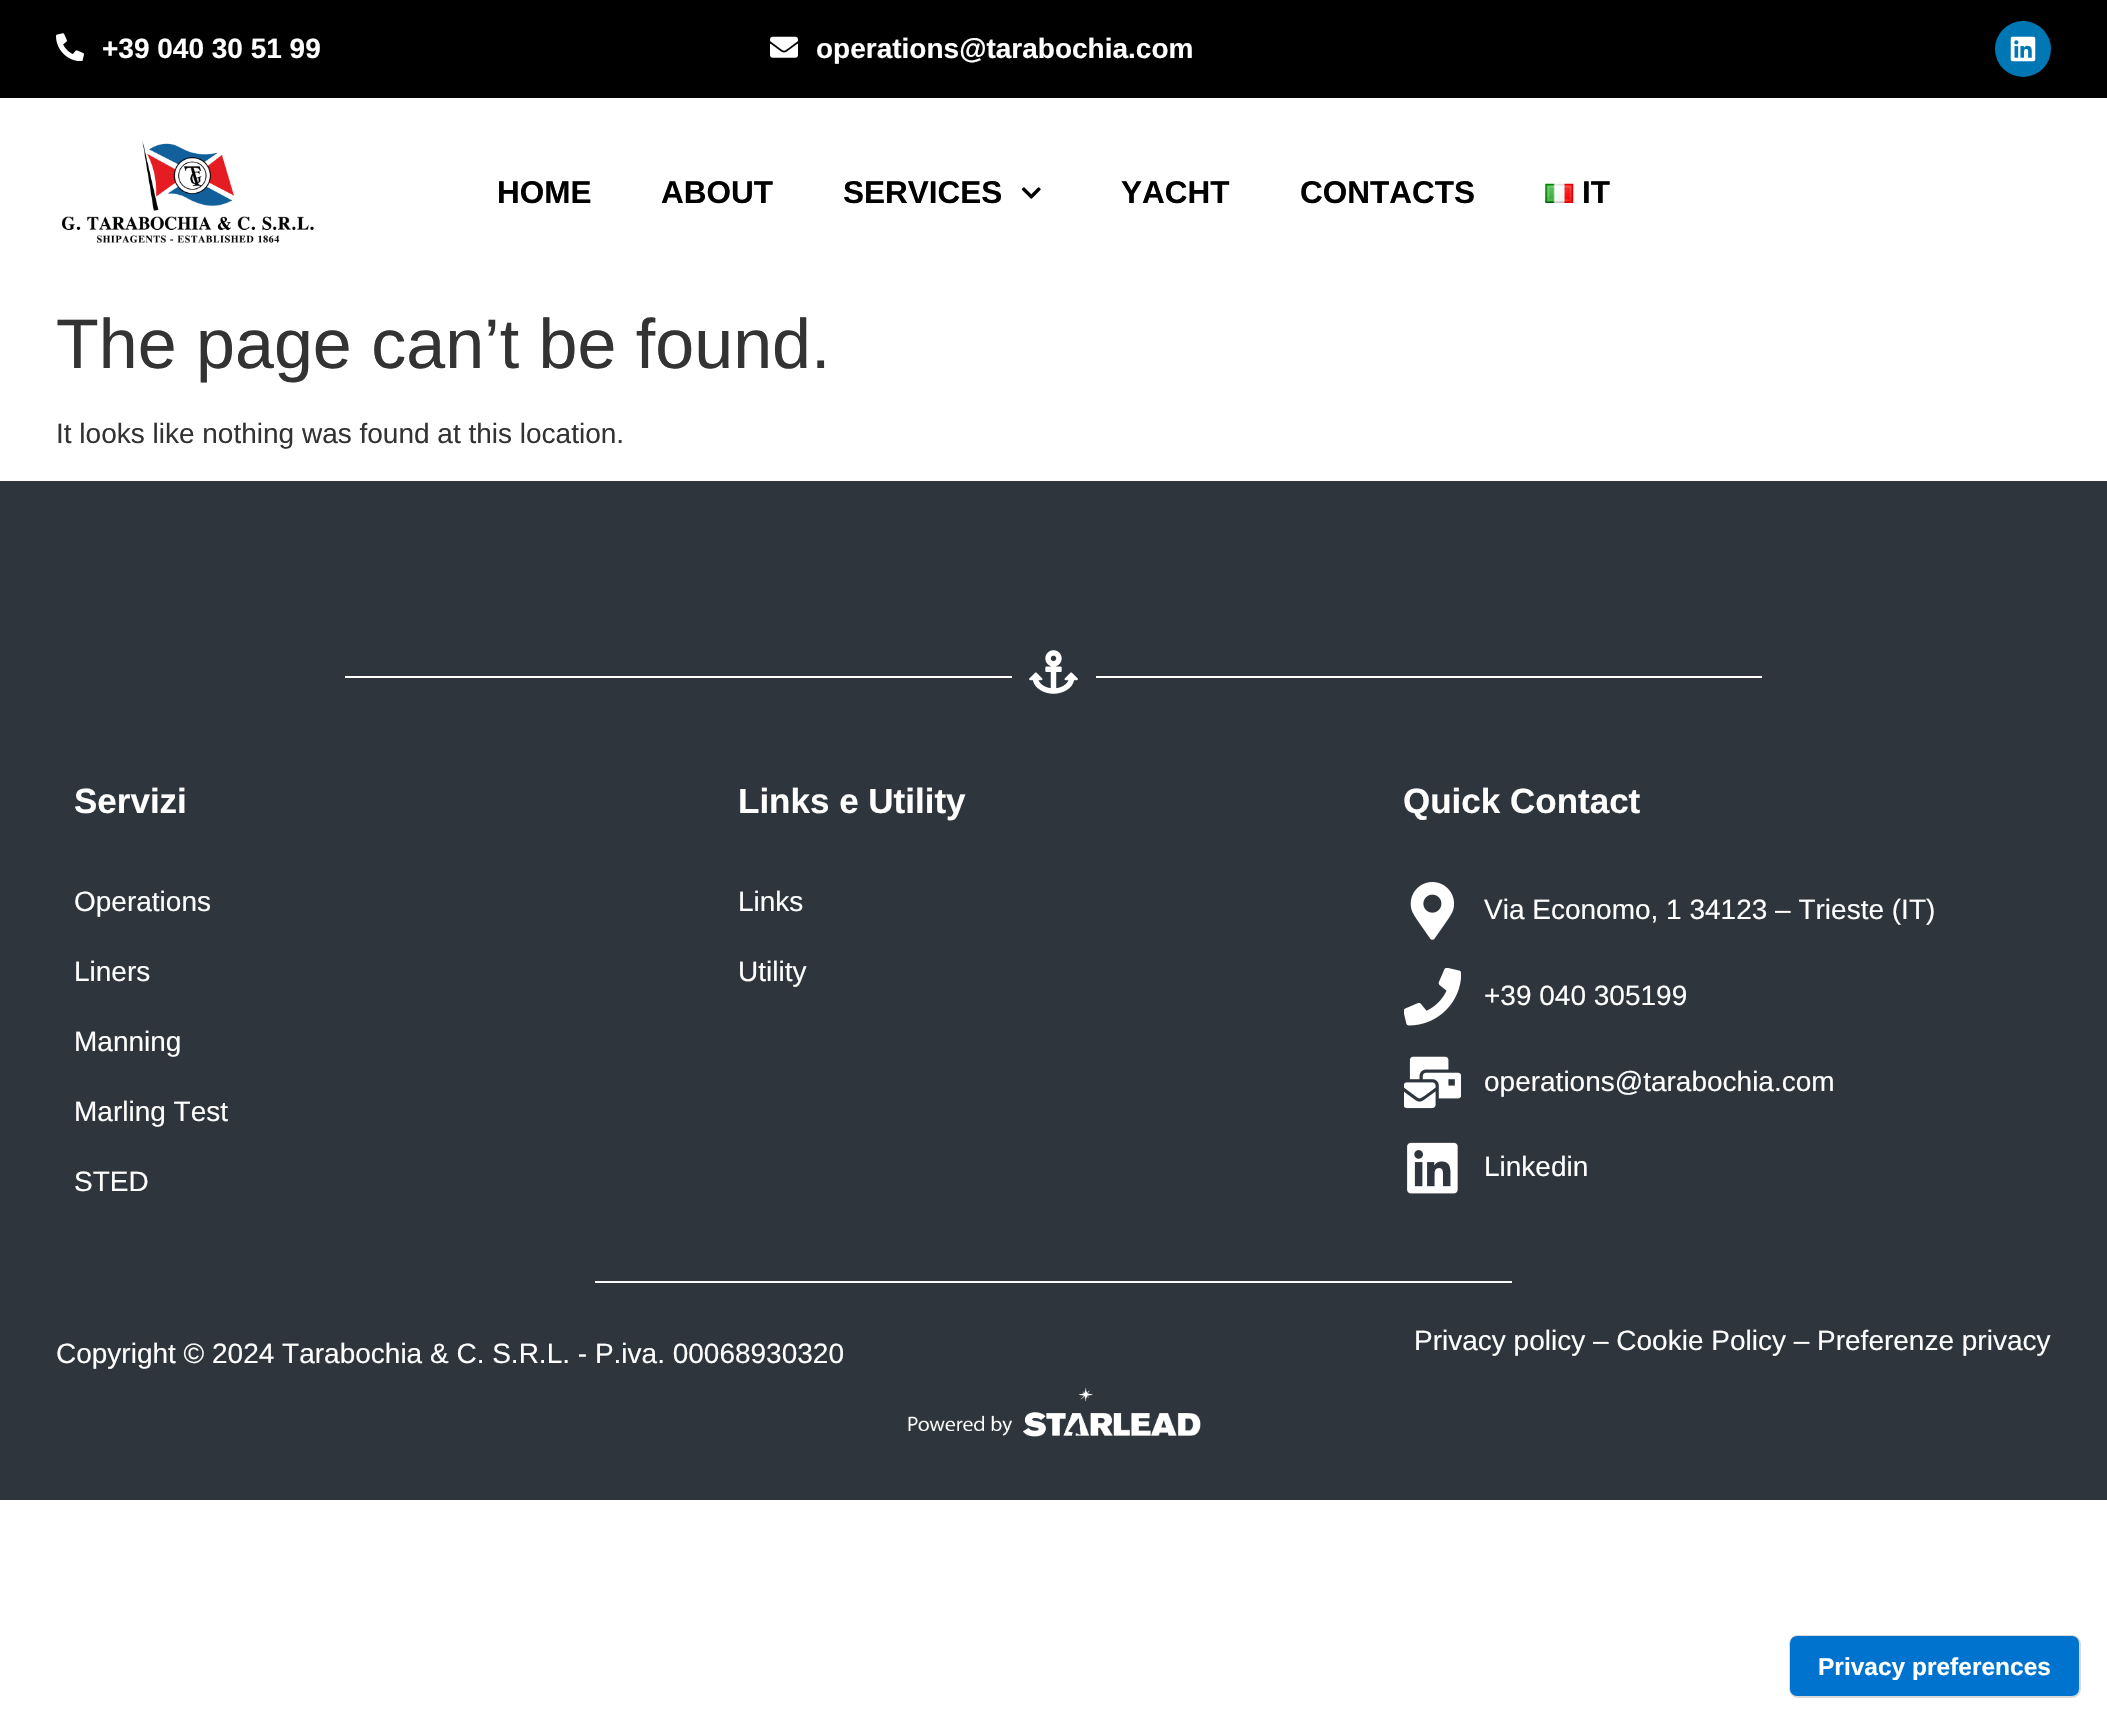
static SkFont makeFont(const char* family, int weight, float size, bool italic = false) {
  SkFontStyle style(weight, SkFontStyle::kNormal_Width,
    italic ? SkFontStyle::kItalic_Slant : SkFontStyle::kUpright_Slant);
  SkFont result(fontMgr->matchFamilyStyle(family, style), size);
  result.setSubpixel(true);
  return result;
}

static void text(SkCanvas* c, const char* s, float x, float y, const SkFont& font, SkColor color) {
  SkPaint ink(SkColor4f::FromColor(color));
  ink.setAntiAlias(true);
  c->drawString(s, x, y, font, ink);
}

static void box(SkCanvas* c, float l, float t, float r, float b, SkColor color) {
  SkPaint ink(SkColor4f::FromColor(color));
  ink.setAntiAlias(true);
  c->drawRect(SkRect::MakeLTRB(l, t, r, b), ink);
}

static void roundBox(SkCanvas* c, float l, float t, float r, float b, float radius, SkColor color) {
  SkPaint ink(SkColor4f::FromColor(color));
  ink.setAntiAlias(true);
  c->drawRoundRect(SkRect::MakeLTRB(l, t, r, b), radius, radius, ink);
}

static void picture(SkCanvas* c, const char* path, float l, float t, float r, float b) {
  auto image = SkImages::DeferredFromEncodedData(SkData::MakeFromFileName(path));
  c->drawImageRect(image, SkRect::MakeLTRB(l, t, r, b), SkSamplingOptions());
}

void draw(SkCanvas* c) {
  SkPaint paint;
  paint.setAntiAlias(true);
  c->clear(0xffffffff);
  box(c, 0, 0, 2107, 98, 0xff000000);
  picture(c, "img_01.png", 56, 33, 84, 61);
  SkFont face1 = makeFont("Liberation Sans", 700, 28);
  text(c, "+39 040 30 51 99", 102, 58, face1, 0xffffffff);
  picture(c, "img_02.png", 770, 36, 798, 58);
  text(c, "operations@tarabochia.com", 816, 58, face1, 0xffffffff);
  paint.setColor(0xff0077b5);
  c->drawCircle(2023, 49, 28, paint);
  picture(c, "img_03.png", 2010, 36, 2036, 62);
  picture(c, "img_04.png", 62, 140, 314, 243);
  SkFont face2 = makeFont("Liberation Sans", 700, 31.5f);
  text(c, "HOME", 497, 203, face2, 0xff000000);
  text(c, "ABOUT", 661, 203, face2, 0xff000000);
  text(c, "SERVICES", 843, 203, face2, 0xff000000);
  picture(c, "img_05.png", 1021, 187, 1041, 199);
  text(c, "YACHT", 1121, 203, face2, 0xff000000);
  text(c, "CONTACTS", 1300, 203, face2, 0xff000000);
  picture(c, "img_06.png", 1545, 183, 1574, 203);
  text(c, "IT", 1582, 203, face2, 0xff000000);
  SkFont face3 = makeFont("Liberation Sans", 400, 70);
  text(c, "The page can’t be found.", 56, 368, face3, 0xff333333);
  SkFont face4 = makeFont("Liberation Sans", 400, 28);
  text(c, "It looks like nothing was found at this location.", 56, 443, face4, 0xff333333);
  box(c, 0, 481, 2107, 1500, 0xff2e353c);
  box(c, 345, 676, 1012, 678, 0xffffffff);
  picture(c, "img_07.png", 1029, 650, 1078, 694);
  box(c, 1096, 676, 1762, 678, 0xffffffff);
  SkFont face5 = makeFont("Liberation Sans", 700, 35);
  text(c, "Servizi", 74, 813, face5, 0xffffffff);
  text(c, "Operations", 74, 911, face4, 0xffffffff);
  text(c, "Liners", 74, 981, face4, 0xffffffff);
  text(c, "Manning", 74, 1051, face4, 0xffffffff);
  text(c, "Marling Test", 74, 1121, face4, 0xffffffff);
  text(c, "STED", 74, 1191, face4, 0xffffffff);
  text(c, "Links e Utility", 738, 813, face5, 0xffffffff);
  text(c, "Links", 738, 911, face4, 0xffffffff);
  text(c, "Utility", 738, 981, face4, 0xffffffff);
  text(c, "Quick Contact", 1403, 813, face5, 0xffffffff);
  picture(c, "img_08.png", 1410, 882, 1454, 940);
  text(c, "Via Economo, 1 34123 – Trieste (IT)", 1484, 919, face4, 0xffffffff);
  picture(c, "img_09.png", 1404, 968, 1461, 1026);
  text(c, "+39 040 305199", 1484, 1005, face4, 0xffffffff);
  picture(c, "img_10.png", 1404, 1056, 1461, 1109);
  text(c, "operations@tarabochia.com", 1484, 1091, face4, 0xffffffff);
  picture(c, "img_11.png", 1407, 1142, 1458, 1194);
  text(c, "Linkedin", 1484, 1176, face4, 0xffffffff);
  box(c, 595, 1281, 1512, 1283, 0xfffafafa);
  text(c, "Copyright © 2024 Tarabochia & C. S.R.L. - P.iva. 00068930320", 56, 1363, face4, 0xffffffff);
  text(c, "Privacy policy – Cookie Policy – Preferenze privacy", 1414, 1350, face4, 0xffffffff);
  picture(c, "img_12.png", 908, 1387, 1201, 1437);
  paint.setStyle(SkPaint::kStroke_Style);
  paint.setStrokeWidth(2);
  paint.setColor(0xffd9d9d9);
  c->drawRoundRect(SkRect::MakeLTRB(1790, 1636, 2080, 1697), 8, 8, paint);
  roundBox(c, 1790, 1636, 2079, 1696, 7, 0xff0073ce);
  SkFont face6 = makeFont("Liberation Sans", 700, 24.5f);
  text(c, "Privacy preferences", 1818, 1675, face6, 0xffffffff);
}
